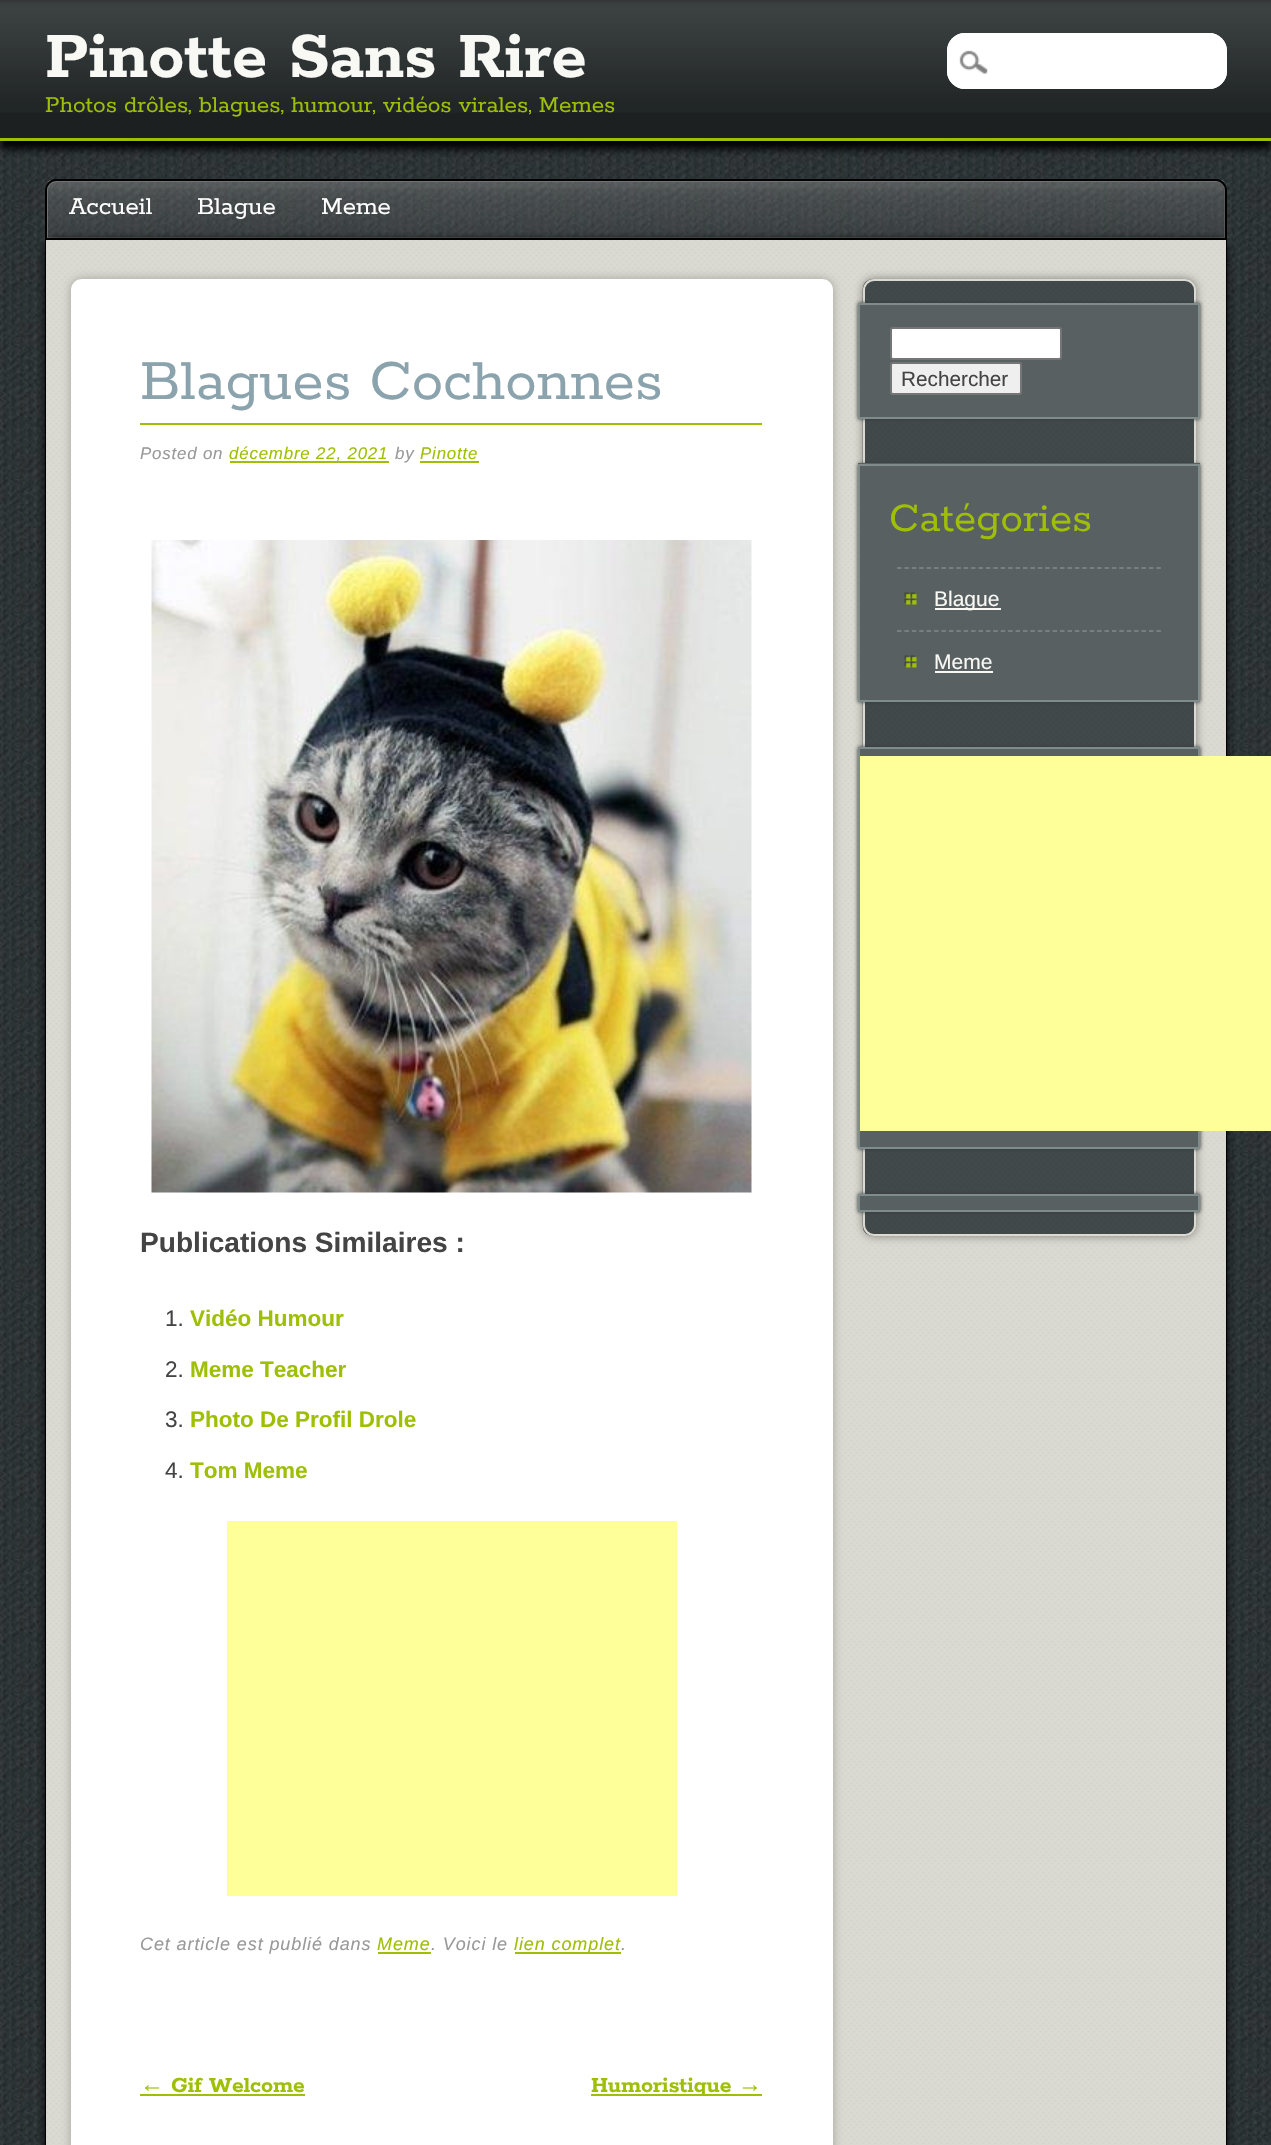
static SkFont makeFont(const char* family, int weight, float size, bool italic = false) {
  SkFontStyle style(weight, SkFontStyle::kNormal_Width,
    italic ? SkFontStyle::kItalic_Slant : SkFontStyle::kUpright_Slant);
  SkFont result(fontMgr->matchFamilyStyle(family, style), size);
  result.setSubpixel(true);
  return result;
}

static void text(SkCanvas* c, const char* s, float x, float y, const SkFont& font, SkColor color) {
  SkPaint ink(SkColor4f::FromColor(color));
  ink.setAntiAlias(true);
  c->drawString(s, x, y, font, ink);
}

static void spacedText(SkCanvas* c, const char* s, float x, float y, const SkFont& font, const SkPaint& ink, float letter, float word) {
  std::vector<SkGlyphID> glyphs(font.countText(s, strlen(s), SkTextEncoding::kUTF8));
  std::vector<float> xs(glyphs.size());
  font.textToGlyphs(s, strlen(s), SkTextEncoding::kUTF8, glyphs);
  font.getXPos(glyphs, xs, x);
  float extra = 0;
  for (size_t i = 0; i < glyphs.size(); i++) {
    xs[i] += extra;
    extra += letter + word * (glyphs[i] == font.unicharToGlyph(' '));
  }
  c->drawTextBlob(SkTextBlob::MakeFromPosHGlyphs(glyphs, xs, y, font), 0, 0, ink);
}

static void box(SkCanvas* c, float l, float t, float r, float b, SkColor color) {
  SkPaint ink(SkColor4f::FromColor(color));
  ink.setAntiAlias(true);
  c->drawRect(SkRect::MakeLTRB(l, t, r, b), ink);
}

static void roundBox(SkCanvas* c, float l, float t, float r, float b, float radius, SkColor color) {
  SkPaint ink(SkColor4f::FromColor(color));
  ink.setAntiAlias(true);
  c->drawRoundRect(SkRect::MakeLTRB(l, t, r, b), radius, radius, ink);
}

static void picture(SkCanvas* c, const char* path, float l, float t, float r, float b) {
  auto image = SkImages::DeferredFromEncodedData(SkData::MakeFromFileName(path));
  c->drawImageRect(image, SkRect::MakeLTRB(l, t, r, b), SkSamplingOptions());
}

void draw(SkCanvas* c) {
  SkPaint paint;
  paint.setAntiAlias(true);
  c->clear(0xffffffff);
  picture(c, "img_01.png", 0, 141, 1271, 2145);
  paint.setColor(0xff000000);
  paint.setMaskFilter(SkMaskFilter::MakeBlur(kNormal_SkBlurStyle, 4));
  c->drawRect(SkRect::MakeLTRB(0, 8, 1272, 149), paint);
  paint.setMaskFilter(nullptr);
  box(c, 0, 113, 1271, 138, 0xff1d2021);
  picture(c, "img_02.png", 0, 0, 1271, 113);
  box(c, 0, 138, 1271, 141, 0xff9fbf06);
  SkFont face1 = makeFont("Rokkitt", 700, 72);
  text(c, "Pinotte Sans Rire", 45, 77, face1, 0xfff8f8f5);
  SkFont face2 = makeFont("Rokkitt", 400, 25.2f);
  text(c, "Photos drôles, blagues, humour, vidéos virales, Memes", 45, 112, face2, 0xff9fbf06);
  picture(c, "img_03.png", 45, 180, 1227, 237);
  paint.setColor(0xff575a5b);
  c->drawPath(SkPathBuilder().moveTo(47, 237).lineTo(47, 239).lineTo(1226, 239).lineTo(1226, 189).cubicTo(1226, 186, 1224, 183, 1221, 181).cubicTo(1223, 183, 1224, 186, 1224, 188).lineTo(1224, 237).close().detach(), paint);
  paint.setColor(0xff707273);
  c->drawPath(SkPathBuilder().moveTo(57, 182).lineTo(1218, 182).cubicTo(1221, 182, 1224, 183, 1225, 185).cubicTo(1224, 182, 1221, 180, 1217, 180).lineTo(56, 180).cubicTo(51, 180, 47, 184, 47, 189).lineTo(47, 239).lineTo(48, 239).lineTo(48, 190).cubicTo(48, 186, 52, 182, 57, 182).close().detach(), paint);
  paint.setStyle(SkPaint::kStroke_Style);
  paint.setStrokeWidth(2);
  paint.setColor(0xff000000);
  c->drawPath(SkPathBuilder().moveTo(56, 180).lineTo(1216, 180).cubicTo(1221.5f, 180, 1226, 184.5f, 1226, 190).lineTo(1226, 239).lineTo(46, 239).lineTo(46, 190).cubicTo(46, 184.5f, 50.5f, 180, 56, 180).close().detach(), paint);
  roundBox(c, 947, 33, 1227, 89, 18, 0xffffffff);
  picture(c, "img_04.png", 959, 50, 988, 74);
  paint.setColor(0xffffffff);
  c->drawRoundRect(SkRect::MakeLTRB(948, 34, 1226, 88), 17, 17, paint);
  SkFont face3 = makeFont("Rokkitt", 400, 27);
  text(c, "Accueil", 69, 214, face3, 0xffffffff);
  text(c, "Blague", 197, 214, face3, 0xffffffff);
  text(c, "Meme", 321, 214, face3, 0xffffffff);
  paint.setStyle(SkPaint::kFill_Style);
  paint.setColor(0xff000000);
  paint.setMaskFilter(SkMaskFilter::MakeBlur(kNormal_SkBlurStyle, 4));
  c->drawRoundRect(SkRect::MakeLTRB(45, 240, 1227, 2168), 11, 11, paint);
  paint.setMaskFilter(nullptr);
  picture(c, "img_05.png", 46, 240, 1226, 2145);
  c->drawPath(SkPathBuilder(SkPathFillType::kEvenOdd).moveTo(45, 240).lineTo(1227, 240).lineTo(1227, 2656).cubicTo(1227, 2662, 1222, 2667, 1216, 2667).lineTo(56, 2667).cubicTo(50, 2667, 45, 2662, 45, 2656).close().moveTo(46, 240).lineTo(1226, 240).lineTo(1226, 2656).cubicTo(1226, 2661, 1221, 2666, 1216, 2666).lineTo(56, 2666).cubicTo(51, 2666, 46, 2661, 46, 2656).close().detach(), paint);
  paint.setColor(0xffa2a19b);
  paint.setMaskFilter(SkMaskFilter::MakeBlur(kNormal_SkBlurStyle, 5));
  c->drawRoundRect(SkRect::MakeLTRB(71, 279, 833, 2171), 11, 11, paint);
  paint.setMaskFilter(nullptr);
  paint.setColor(0xffffffff);
  c->drawRoundRect(SkRect::MakeLTRB(72, 280, 832, 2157), 10, 10, paint);
  paint.setStyle(SkPaint::kStroke_Style);
  c->drawRoundRect(SkRect::MakeLTRB(72, 280, 832, 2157), 10, 10, paint);
  box(c, 140, 423, 762, 425, 0xff9fbf06);
  SkFont face4 = makeFont("Rokkitt", 400, 63);
  text(c, "Blagues Cochonnes", 140, 399, face4, 0xff8ba3ad);
  SkFont face5 = makeFont("Liberation Sans", 400, 16.9f, true);
  paint.setStyle(SkPaint::kFill_Style);
  paint.setColor(0xff999999);
  spacedText(c, "Posted on", 140, 459, face5, paint, 0.8f, 0);
  box(c, 230, 461, 389, 463, 0xff9fbf06);
  paint.setColor(0xff9fbf06);
  spacedText(c, "décembre 22, 2021", 229, 459, face5, paint, 0.8f, 0);
  paint.setColor(0xff999999);
  spacedText(c, "by", 395, 459, face5, paint, 0.8f, 0);
  paint.setColor(0xff9fbf06);
  spacedText(c, "Pinotte", 420, 459, face5, paint, 0.8f, 0);
  box(c, 420, 461, 479, 463, 0xff9fbf06);
  picture(c, "img_06.png", 151, 540, 752, 1193);
  SkFont face6 = makeFont("Liberation Sans", 700, 28.1f);
  text(c, "Publications Similaires :", 140, 1252, face6, 0xff444444);
  SkFont face7 = makeFont("Liberation Sans", 400, 22.5f);
  text(c, "1.", 165, 1326, face7, 0xff444444);
  SkFont face8 = makeFont("Liberation Sans", 700, 22.5f);
  text(c, "Vidéo Humour", 190, 1326, face8, 0xff9fbf06);
  text(c, "2.", 165, 1377, face7, 0xff444444);
  text(c, "Meme Teacher", 190, 1377, face8, 0xff9fbf06);
  text(c, "3.", 165, 1427, face7, 0xff444444);
  text(c, "Photo De Profil Drole", 190, 1427, face8, 0xff9fbf06);
  text(c, "4.", 165, 1478, face7, 0xff444444);
  text(c, "Tom Meme", 190, 1478, face8, 0xff9fbf06);
  box(c, 227, 1521, 677, 1896, 0xffffff99);
  SkFont face9 = makeFont("Liberation Sans", 400, 18, true);
  paint.setColor(0xff999999);
  spacedText(c, "Cet article est publié dans", 140, 1950, face9, paint, 0.9f, 0);
  paint.setColor(0xff9fbf06);
  spacedText(c, "Meme", 377, 1950, face9, paint, 0.9f, 0);
  box(c, 378, 1952, 431, 1954, 0xff9fbf06);
  paint.setColor(0xff999999);
  spacedText(c, ". Voici le", 431, 1950, face9, paint, 0.9f, 0);
  box(c, 515, 1952, 621, 1954, 0xff9fbf06);
  paint.setColor(0xff9fbf06);
  spacedText(c, "lien complet", 514, 1950, face9, paint, 0.9f, 0);
  paint.setColor(0xff999999);
  spacedText(c, ".", 621, 1950, face9, paint, 0.9f, 0);
  SkFont face10 = makeFont("Liberation Serif", 700, 24);
  text(c, "←", 140, 2092, face10, 0xff9fbf06);
  box(c, 140, 2094, 305, 2096, 0xff9fbf06);
  SkFont face11 = makeFont("Rokkitt", 700, 24);
  text(c, "Gif Welcome", 171, 2092, face11, 0xff9fbf06);
  box(c, 591, 2094, 762, 2096, 0xff9fbf06);
  text(c, "Humoristique", 591, 2092, face11, 0xff9fbf06);
  text(c, "→", 738, 2092, face10, 0xff9fbf06);
  paint.setColor(0xff7d7c78);
  paint.setMaskFilter(SkMaskFilter::MakeBlur(kNormal_SkBlurStyle, 5));
  c->drawRoundRect(SkRect::MakeLTRB(863, 279, 1196, 1236), 11, 11, paint);
  paint.setMaskFilter(nullptr);
  picture(c, "img_07.png", 862, 279, 1196, 1236);
  paint.setStyle(SkPaint::kStroke_Style);
  paint.setColor(0xffdbdad2);
  c->drawRoundRect(SkRect::MakeLTRB(864, 280, 1195, 1235), 10, 10, paint);
  paint.setStyle(SkPaint::kFill_Style);
  paint.setColor(0xff33393a);
  paint.setMaskFilter(SkMaskFilter::MakeBlur(kNormal_SkBlurStyle, 2));
  c->drawRect(SkRect::MakeLTRB(858, 303, 1200, 419), paint);
  paint.setMaskFilter(nullptr);
  paint.setColor(0xff586061);
  c->drawRect(SkRect::MakeLTRB(859, 304, 1199, 418), paint);
  paint.setStyle(SkPaint::kStroke_Style);
  paint.setColor(0xff808b8c);
  c->drawRect(SkRect::MakeLTRB(859, 304, 1199, 418), paint);
  paint.setStyle(SkPaint::kFill_Style);
  paint.setColor(0xffffffff);
  c->drawRoundRect(SkRect::MakeLTRB(891, 328, 1061, 359), 2, 2, paint);
  paint.setStyle(SkPaint::kStroke_Style);
  paint.setColor(0xff767676);
  c->drawRoundRect(SkRect::MakeLTRB(891, 328, 1061, 359), 2, 2, paint);
  paint.setStyle(SkPaint::kFill_Style);
  paint.setColor(0xffefefef);
  c->drawRoundRect(SkRect::MakeLTRB(891, 363, 1021, 394), 2, 2, paint);
  paint.setStyle(SkPaint::kStroke_Style);
  paint.setColor(0xff767676);
  c->drawRoundRect(SkRect::MakeLTRB(891, 363, 1021, 394), 2, 2, paint);
  SkFont face12 = makeFont("Liberation Sans", 400, 20.75f);
  text(c, "Rechercher", 901, 386, face12, 0xff444444);
  paint.setStyle(SkPaint::kFill_Style);
  paint.setColor(0xff33393a);
  paint.setMaskFilter(SkMaskFilter::MakeBlur(kNormal_SkBlurStyle, 2));
  c->drawRect(SkRect::MakeLTRB(858, 464, 1200, 702), paint);
  paint.setMaskFilter(nullptr);
  box(c, 858, 463, 1200, 700, 0xff586061);
  paint.setStyle(SkPaint::kStroke_Style);
  paint.setColor(0xff808b8c);
  c->drawRect(SkRect::MakeLTRB(859, 465, 1199, 701), paint);
  SkFont face13 = makeFont("Rokkitt", 400, 45);
  text(c, "Catégories", 889, 531, face13, 0xff9fbf06);
  picture(c, "img_08.png", 904, 592, 917, 605);
  paint.setStrokeWidth(1.5f);
  paint.setPathEffect(SkDashPathEffect::Make({{4.5f, 2.91f}}, 0));
  c->drawPath(SkPathBuilder().moveTo(897, 568).lineTo(1161, 568).detach(), paint);
  paint.setPathEffect(nullptr);
  box(c, 935, 608, 1001, 610, 0xfff8f8f5);
  SkFont face14 = makeFont("Liberation Sans", 400, 21);
  text(c, "Blague", 934, 606, face14, 0xfff8f8f5);
  picture(c, "img_08.png", 904, 655, 917, 668);
  paint.setPathEffect(SkDashPathEffect::Make({{4.5f, 2.91f}}, 0));
  c->drawPath(SkPathBuilder().moveTo(897, 631).lineTo(1161, 631).detach(), paint);
  paint.setPathEffect(nullptr);
  text(c, "Meme", 934, 669, face14, 0xfff8f8f5);
  box(c, 935, 671, 993, 673, 0xfff8f8f5);
  paint.setStyle(SkPaint::kFill_Style);
  paint.setColor(0xff33393a);
  paint.setMaskFilter(SkMaskFilter::MakeBlur(kNormal_SkBlurStyle, 2));
  c->drawRect(SkRect::MakeLTRB(858, 747, 1200, 1149), paint);
  paint.setMaskFilter(nullptr);
  paint.setColor(0xff586061);
  c->drawRect(SkRect::MakeLTRB(859, 748, 1199, 1148), paint);
  paint.setStyle(SkPaint::kStroke_Style);
  paint.setStrokeWidth(2);
  paint.setColor(0xff808b8c);
  c->drawRect(SkRect::MakeLTRB(859, 748, 1199, 1148), paint);
  box(c, 860, 756, 1271, 1131, 0xffffff99);
  paint.setStyle(SkPaint::kFill_Style);
  paint.setColor(0xff33393a);
  paint.setMaskFilter(SkMaskFilter::MakeBlur(kNormal_SkBlurStyle, 2));
  c->drawRect(SkRect::MakeLTRB(858, 1194, 1200, 1212), paint);
  paint.setMaskFilter(nullptr);
  paint.setColor(0xff586061);
  c->drawRect(SkRect::MakeLTRB(859, 1195, 1199, 1211), paint);
  paint.setStyle(SkPaint::kStroke_Style);
  paint.setColor(0xff808b8c);
  c->drawRect(SkRect::MakeLTRB(859, 1195, 1199, 1211), paint);
}
